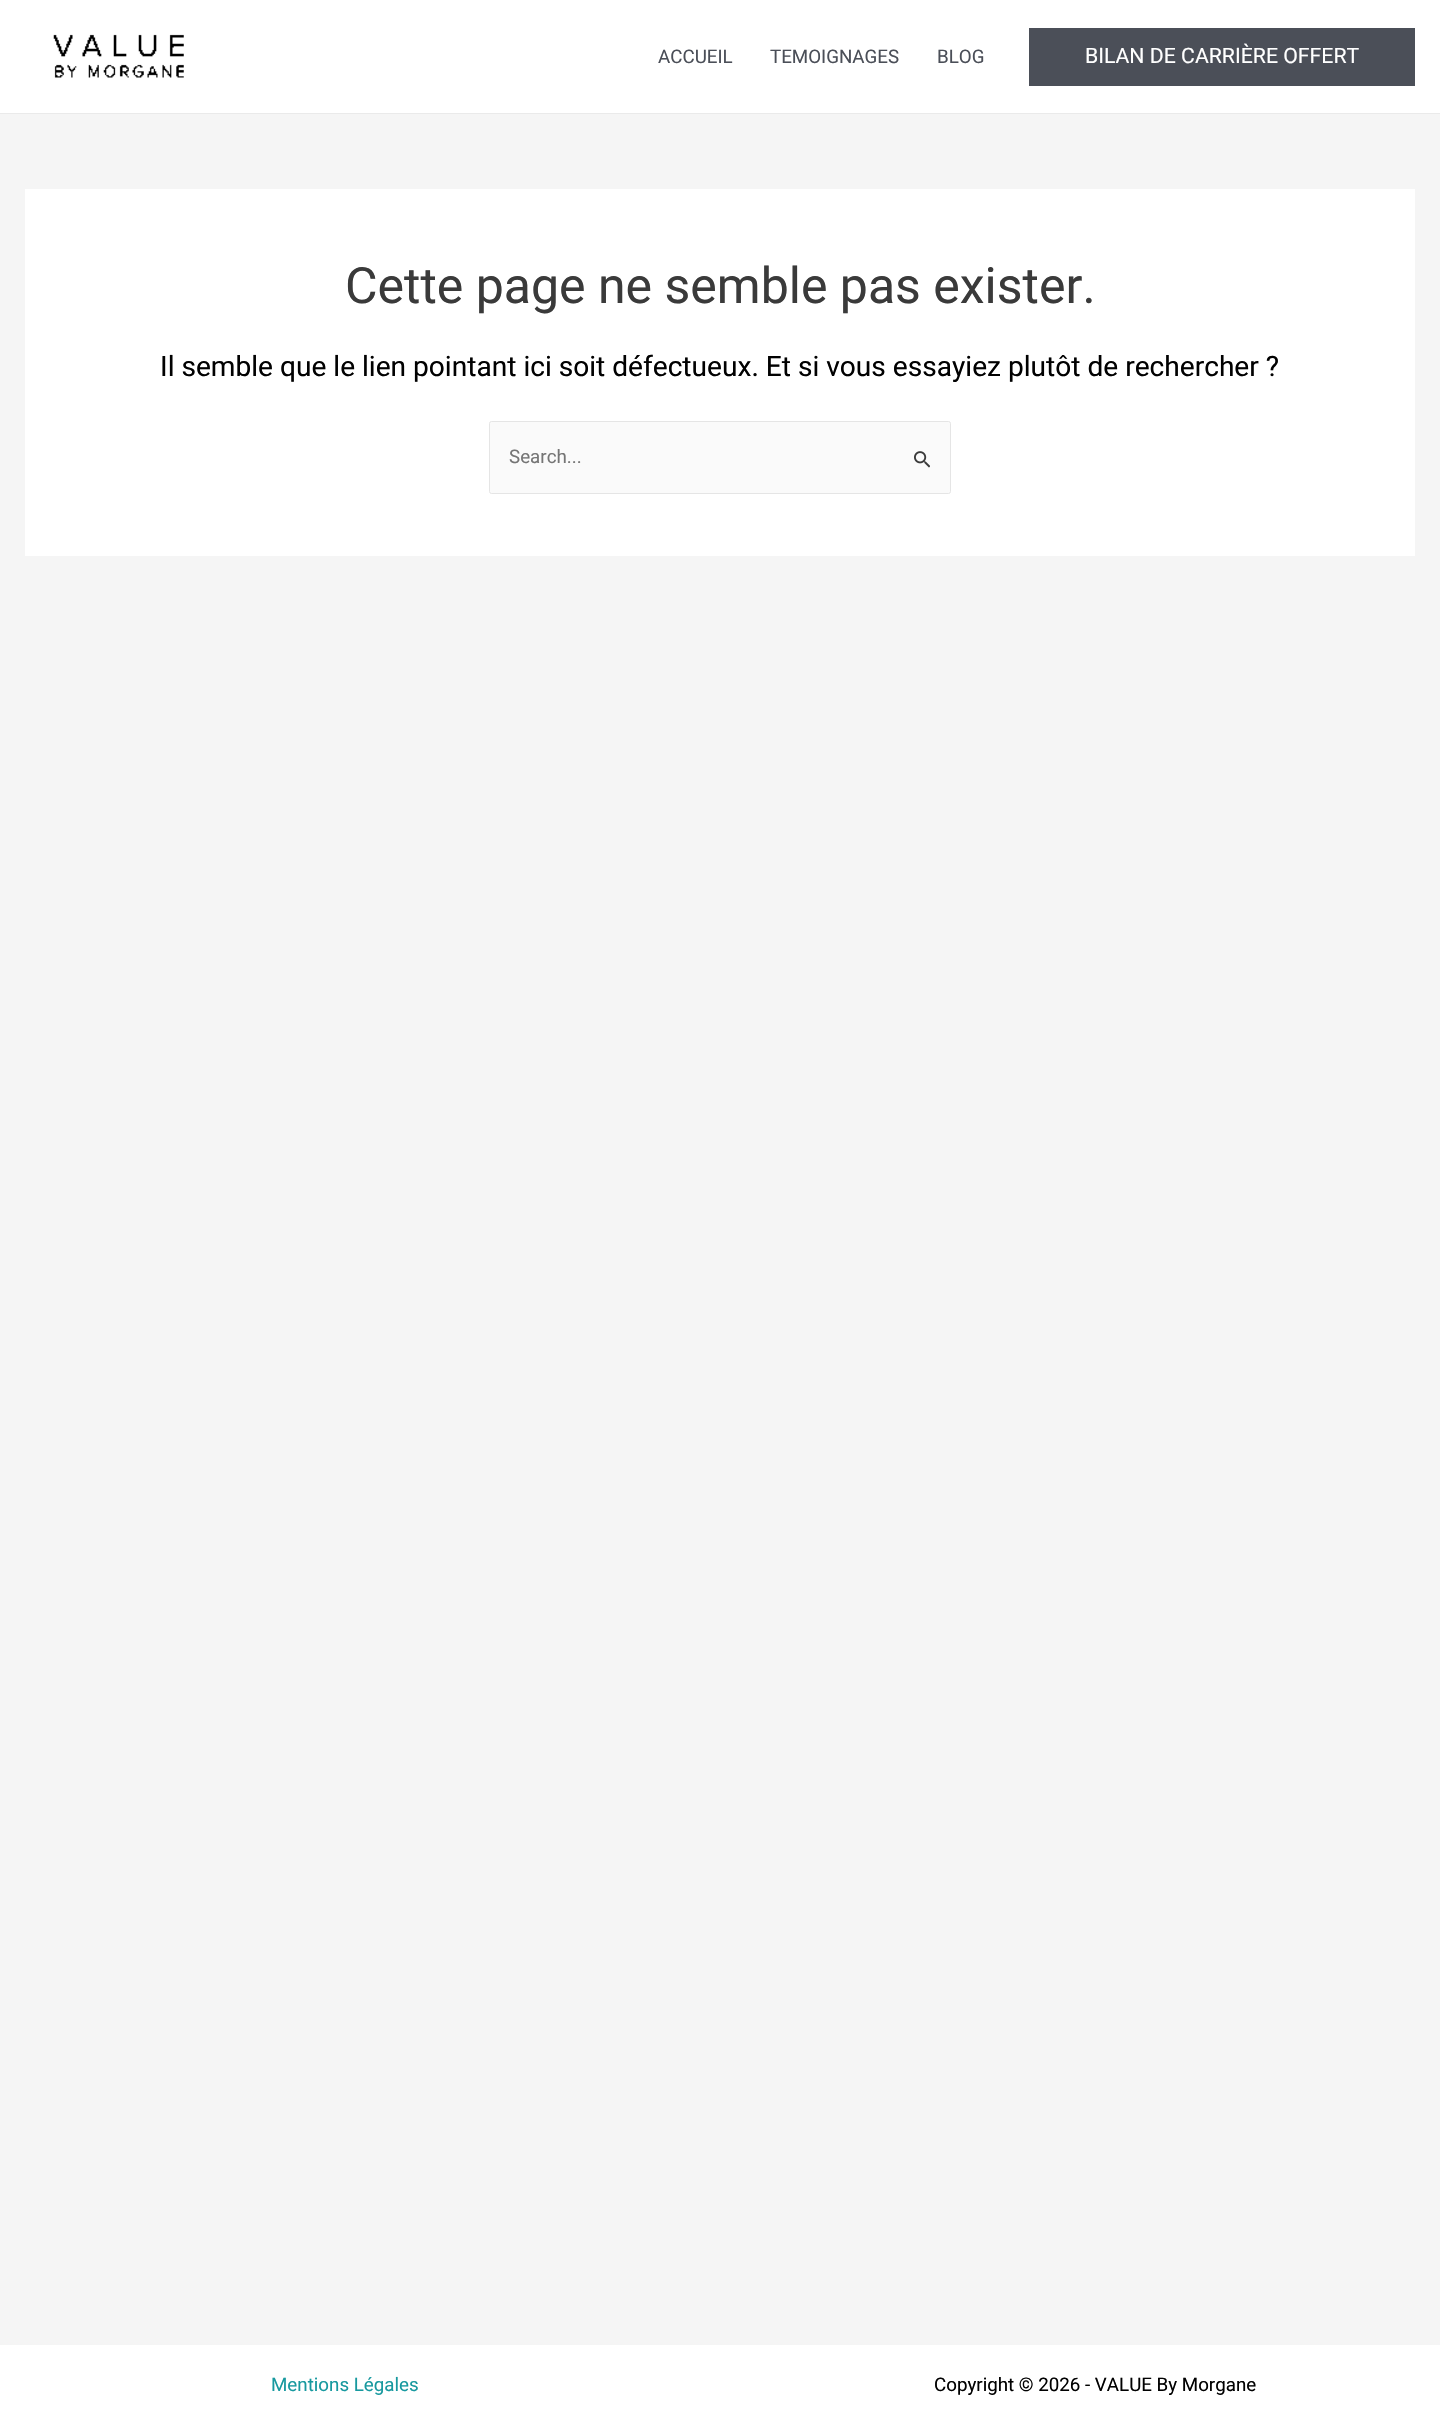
static SkFont makeFont(const char* family, int weight, float size, bool italic = false) {
  SkFontStyle style(weight, SkFontStyle::kNormal_Width,
    italic ? SkFontStyle::kItalic_Slant : SkFontStyle::kUpright_Slant);
  SkFont result(fontMgr->matchFamilyStyle(family, style), size);
  result.setSubpixel(true);
  return result;
}

static void text(SkCanvas* c, const char* s, float x, float y, const SkFont& font, SkColor color) {
  SkPaint ink(SkColor4f::FromColor(color));
  ink.setAntiAlias(true);
  c->drawString(s, x, y, font, ink);
}

static void box(SkCanvas* c, float l, float t, float r, float b, SkColor color) {
  SkPaint ink(SkColor4f::FromColor(color));
  ink.setAntiAlias(true);
  c->drawRect(SkRect::MakeLTRB(l, t, r, b), ink);
}

static void picture(SkCanvas* c, const char* path, float l, float t, float r, float b) {
  auto image = SkImages::DeferredFromEncodedData(SkData::MakeFromFileName(path));
  c->drawImageRect(image, SkRect::MakeLTRB(l, t, r, b), SkSamplingOptions());
}

void draw(SkCanvas* c) {
  SkPaint paint;
  paint.setAntiAlias(true);
  c->clear(0xfff5f5f5);
  box(c, 0, 0, 1440, 113, 0xffffffff);
  box(c, 0, 113, 1440, 114, 0xffeaeaea);
  picture(c, "img_01.png", 53, 34, 184, 78);
  SkFont face1 = makeFont("Roboto", 400, 18.75f);
  text(c, "ACCUEIL", 658, 63, face1, 0xff4b4f58);
  text(c, "TEMOIGNAGES", 770, 63, face1, 0xff4b4f58);
  text(c, "BLOG", 937, 63, face1, 0xff4b4f58);
  box(c, 1029, 28, 1415, 86, 0xff4b4f58);
  SkFont face2 = makeFont("Roboto", 400, 21.25f);
  text(c, "BILAN DE CARRIÈRE OFFERT", 1085, 63, face2, 0xffffffff);
  box(c, 25, 189, 1415, 556, 0xffffffff);
  SkFont face3 = makeFont("Roboto", 400, 50);
  text(c, "Cette page ne semble pas exister.", 345, 303, face3, 0xff3a3a3a);
  SkFont face4 = makeFont("Roboto", 400, 28.1f);
  text(c, "Il semble que le lien pointant ici soit défectueux. Et si vous essayiez plutôt de rechercher ?", 160, 376, face4, 0xff010101);
  paint.setColor(0xfffafafa);
  c->drawRoundRect(SkRect::MakeLTRB(489.5f, 421.5f, 950.5f, 493.5f), 2, 2, paint);
  paint.setStyle(SkPaint::kStroke_Style);
  paint.setStrokeWidth(1);
  paint.setColor(0xffe5e5e5);
  c->drawRoundRect(SkRect::MakeLTRB(489.5f, 421.5f, 950.5f, 493.5f), 2, 2, paint);
  text(c, "Search...", 509, 463, face1, 0xff757575);
  picture(c, "img_02.png", 914, 451, 930, 468);
  box(c, 0, 2345, 1440, 2425, 0xffffffff);
  text(c, "Mentions Légales", 271, 2391, face1, 0xff18999f);
  text(c, "Copyright © 2026 - VALUE By Morgane", 934, 2391, face1, 0xff010101);
}
